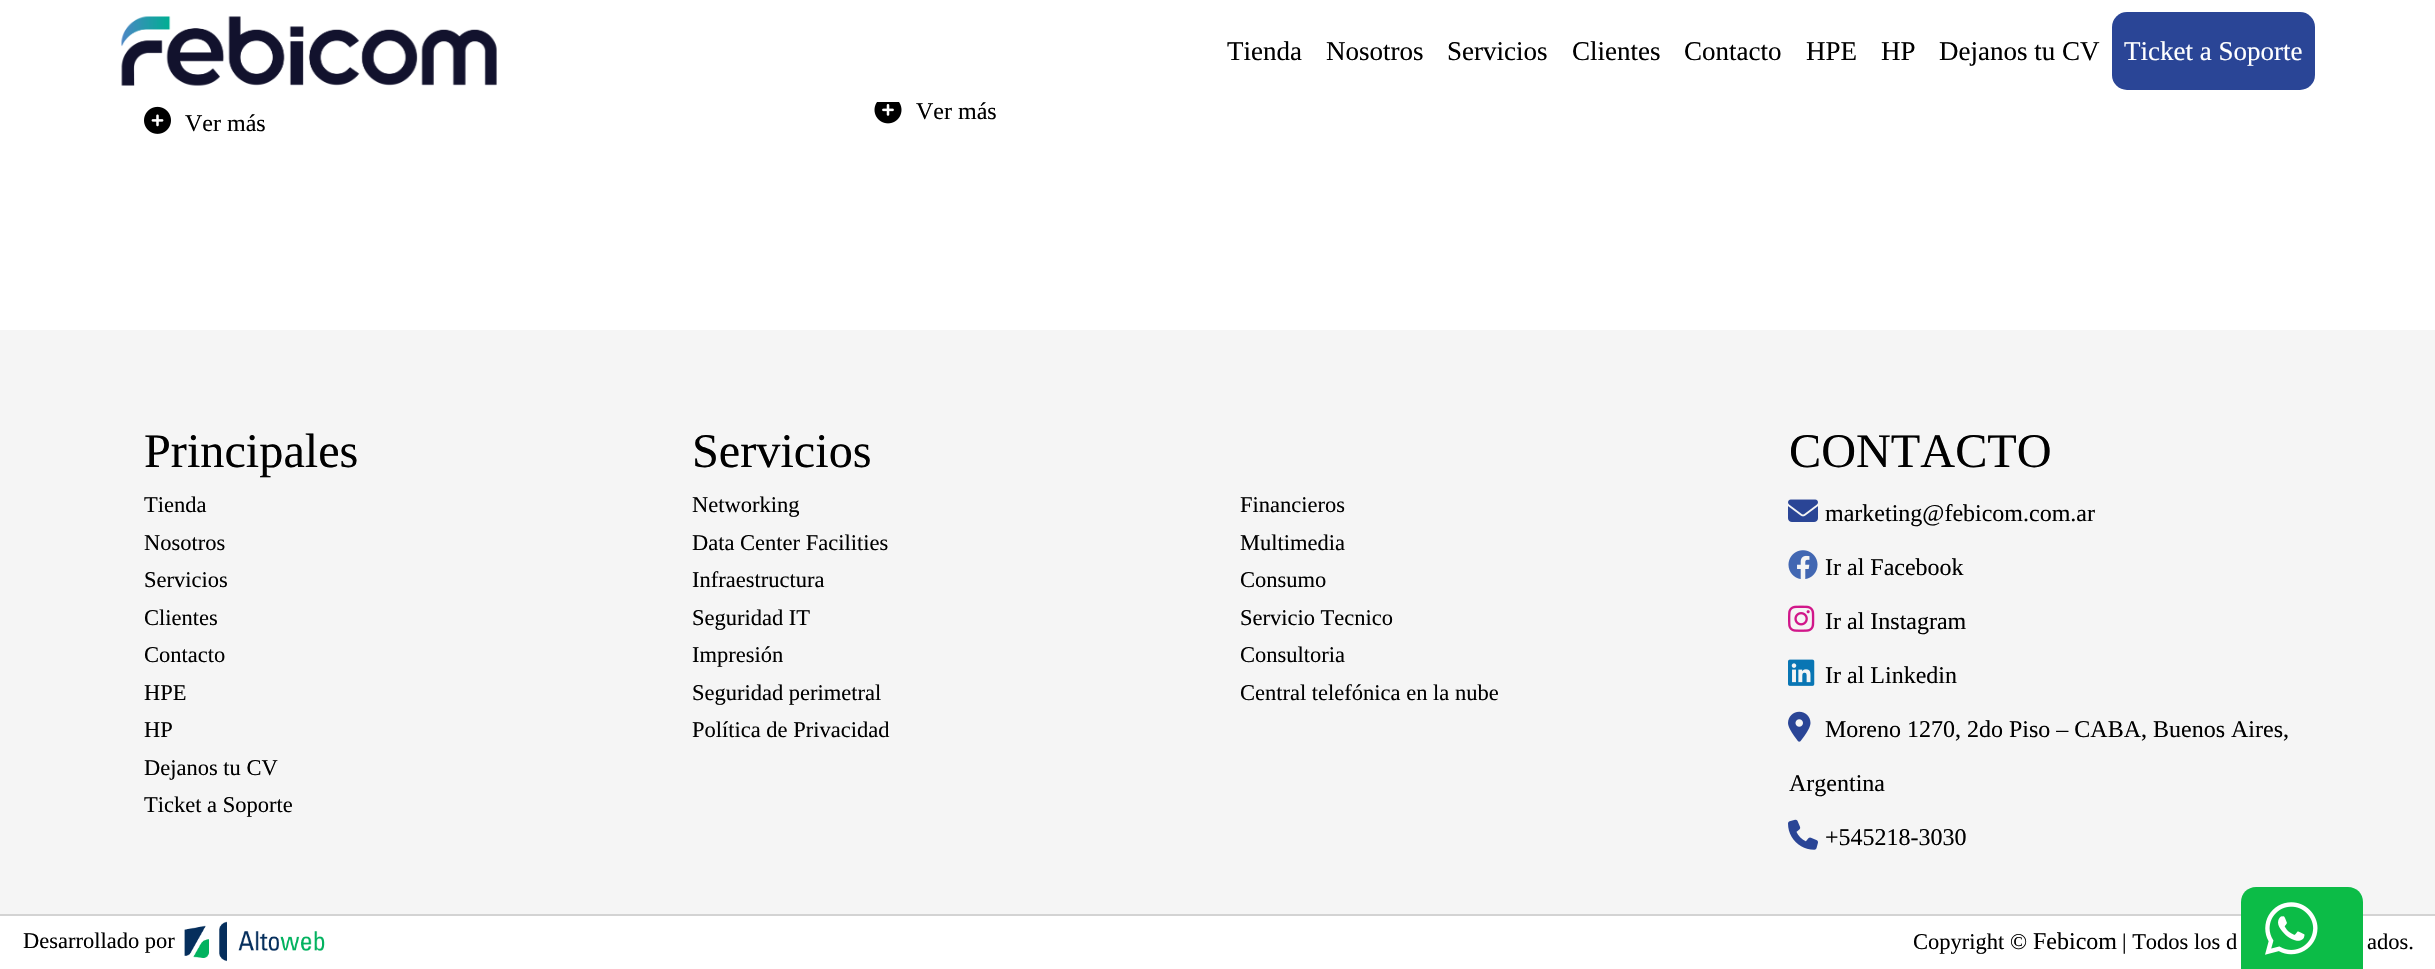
static SkFont makeFont(const char* family, int weight, float size, bool italic = false) {
  SkFontStyle style(weight, SkFontStyle::kNormal_Width,
    italic ? SkFontStyle::kItalic_Slant : SkFontStyle::kUpright_Slant);
  SkFont result(fontMgr->matchFamilyStyle(family, style), size);
  result.setSubpixel(true);
  return result;
}

static void text(SkCanvas* c, const char* s, float x, float y, const SkFont& font, SkColor color) {
  SkPaint ink(SkColor4f::FromColor(color));
  ink.setAntiAlias(true);
  c->drawString(s, x, y, font, ink);
}

static void box(SkCanvas* c, float l, float t, float r, float b, SkColor color) {
  SkPaint ink(SkColor4f::FromColor(color));
  ink.setAntiAlias(true);
  c->drawRect(SkRect::MakeLTRB(l, t, r, b), ink);
}

static void roundBox(SkCanvas* c, float l, float t, float r, float b, float radius, SkColor color) {
  SkPaint ink(SkColor4f::FromColor(color));
  ink.setAntiAlias(true);
  c->drawRoundRect(SkRect::MakeLTRB(l, t, r, b), radius, radius, ink);
}

static void picture(SkCanvas* c, const char* path, float l, float t, float r, float b) {
  auto image = SkImages::DeferredFromEncodedData(SkData::MakeFromFileName(path));
  c->drawImageRect(image, SkRect::MakeLTRB(l, t, r, b), SkSamplingOptions());
}

void draw(SkCanvas* c) {
  SkPaint paint;
  paint.setAntiAlias(true);
  c->clear(0xffffffff);
  picture(c, "img_01.png", 121, 16, 497, 86);
  SkFont face1 = makeFont("Liberation Serif", 400, 27);
  text(c, "Tienda", 1227, 60, face1, 0xff000000);
  text(c, "Nosotros", 1326, 60, face1, 0xff000000);
  text(c, "Servicios", 1447, 60, face1, 0xff000000);
  text(c, "Clientes", 1572, 60, face1, 0xff000000);
  text(c, "Contacto", 1684, 60, face1, 0xff000000);
  text(c, "HPE", 1806, 60, face1, 0xff000000);
  text(c, "HP", 1881, 60, face1, 0xff000000);
  text(c, "Dejanos tu CV", 1939, 60, face1, 0xff000000);
  roundBox(c, 2112, 12, 2315, 90, 15, 0xff2a4596);
  text(c, "Ticket a Soporte", 2124, 60, face1, 0xffffffff);
  picture(c, "img_02.png", 874, 102, 902, 124);
  SkFont face2 = makeFont("Liberation Serif", 400, 24);
  text(c, "Ver más", 916, 119, face2, 0xff000000);
  picture(c, "img_03.png", 144, 106, 171, 134);
  text(c, "Ver más", 185, 131, face2, 0xff000000);
  box(c, 0, 330, 2435, 914, 0xfff5f5f5);
  SkFont face3 = makeFont("Liberation Serif", 400, 48.25f);
  text(c, "Principales", 144, 467, face3, 0xff000000);
  SkFont face4 = makeFont("Liberation Serif", 400, 22.5f);
  text(c, "Tienda", 144, 512, face4, 0xff000000);
  text(c, "Nosotros", 144, 550, face4, 0xff000000);
  text(c, "Servicios", 144, 587, face4, 0xff000000);
  text(c, "Clientes", 144, 625, face4, 0xff000000);
  text(c, "Contacto", 144, 662, face4, 0xff000000);
  text(c, "HPE", 144, 700, face4, 0xff000000);
  text(c, "HP", 144, 737, face4, 0xff000000);
  text(c, "Dejanos tu CV", 144, 775, face4, 0xff000000);
  text(c, "Ticket a Soporte", 144, 812, face4, 0xff000000);
  text(c, "Servicios", 692, 467, face3, 0xff000000);
  text(c, "Networking", 692, 512, face4, 0xff000000);
  text(c, "Data Center Facilities", 692, 550, face4, 0xff000000);
  text(c, "Infraestructura", 692, 587, face4, 0xff000000);
  text(c, "Seguridad IT", 692, 625, face4, 0xff000000);
  text(c, "Impresión", 692, 662, face4, 0xff000000);
  text(c, "Seguridad perimetral", 692, 700, face4, 0xff000000);
  text(c, "Política de Privacidad", 692, 737, face4, 0xff000000);
  text(c, "Financieros", 1240, 512, face4, 0xff000000);
  text(c, "Multimedia", 1240, 550, face4, 0xff000000);
  text(c, "Consumo", 1240, 587, face4, 0xff000000);
  text(c, "Servicio Tecnico", 1240, 625, face4, 0xff000000);
  text(c, "Consultoria", 1240, 662, face4, 0xff000000);
  text(c, "Central telefónica en la nube", 1240, 700, face4, 0xff000000);
  text(c, "CONTACTO", 1789, 467, face3, 0xff000000);
  picture(c, "img_04.png", 1788, 499, 1818, 522);
  text(c, "marketing@febicom.com.ar", 1825, 521, face2, 0xff000000);
  picture(c, "img_05.png", 1788, 550, 1818, 579);
  text(c, "Ir al Facebook", 1825, 575, face2, 0xff000000);
  picture(c, "img_06.png", 1788, 605, 1815, 632);
  text(c, "Ir al Instagram", 1825, 629, face2, 0xff000000);
  picture(c, "img_07.png", 1788, 659, 1815, 686);
  text(c, "Ir al Linkedin", 1825, 683, face2, 0xff000000);
  picture(c, "img_08.png", 1788, 711, 1811, 742);
  text(c, "Moreno 1270, 2do Piso – CABA, Buenos Aires,", 1825, 737, face2, 0xff000000);
  text(c, "Argentina", 1789, 791, face2, 0xff000000);
  picture(c, "img_09.png", 1788, 819, 1818, 850);
  text(c, "+545218-3030", 1825, 845, face2, 0xff000000);
  box(c, 0, 914, 2435, 916, 0xffd3d3d3);
  paint.setColor(0xff0cbc47);
  c->drawPath(SkPathBuilder().moveTo(2256, 887).lineTo(2348, 887).cubicTo(2356.5f, 887, 2363, 893.5f, 2363, 902).lineTo(2363, 969).lineTo(2241, 969).lineTo(2241, 902).cubicTo(2241, 893.5f, 2247.5f, 887, 2256, 887).close().detach(), paint);
  picture(c, "img_10.png", 2265, 902, 2318, 955);
  text(c, "Desarrollado por", 23, 948, face4, 0xff000000);
  picture(c, "img_11.png", 184, 921, 325, 962);
  text(c, "Copyright ©", 1913, 949, face4, 0xff000000);
  text(c, "Febicom", 2033, 949, face2, 0xff000000);
  text(c, "| Todos los d", 2122, 949, face4, 0xff000000);
  text(c, "ados.", 2367, 949, face4, 0xff000000);
}
